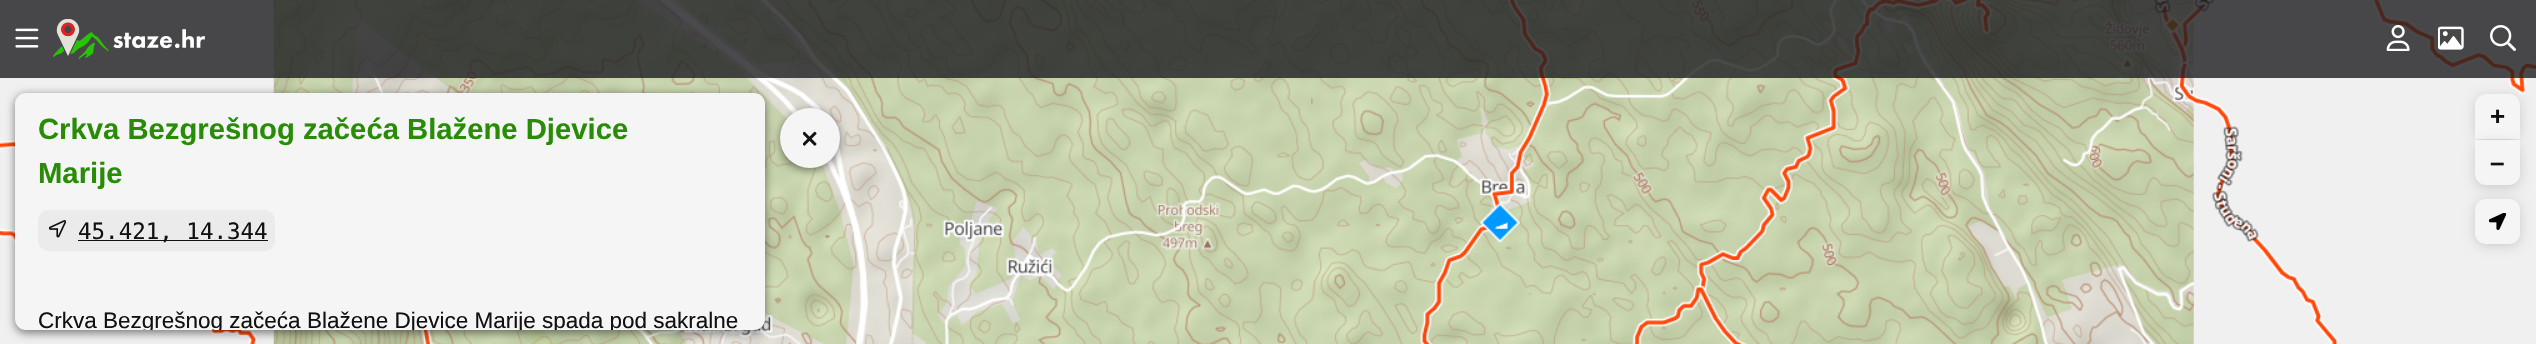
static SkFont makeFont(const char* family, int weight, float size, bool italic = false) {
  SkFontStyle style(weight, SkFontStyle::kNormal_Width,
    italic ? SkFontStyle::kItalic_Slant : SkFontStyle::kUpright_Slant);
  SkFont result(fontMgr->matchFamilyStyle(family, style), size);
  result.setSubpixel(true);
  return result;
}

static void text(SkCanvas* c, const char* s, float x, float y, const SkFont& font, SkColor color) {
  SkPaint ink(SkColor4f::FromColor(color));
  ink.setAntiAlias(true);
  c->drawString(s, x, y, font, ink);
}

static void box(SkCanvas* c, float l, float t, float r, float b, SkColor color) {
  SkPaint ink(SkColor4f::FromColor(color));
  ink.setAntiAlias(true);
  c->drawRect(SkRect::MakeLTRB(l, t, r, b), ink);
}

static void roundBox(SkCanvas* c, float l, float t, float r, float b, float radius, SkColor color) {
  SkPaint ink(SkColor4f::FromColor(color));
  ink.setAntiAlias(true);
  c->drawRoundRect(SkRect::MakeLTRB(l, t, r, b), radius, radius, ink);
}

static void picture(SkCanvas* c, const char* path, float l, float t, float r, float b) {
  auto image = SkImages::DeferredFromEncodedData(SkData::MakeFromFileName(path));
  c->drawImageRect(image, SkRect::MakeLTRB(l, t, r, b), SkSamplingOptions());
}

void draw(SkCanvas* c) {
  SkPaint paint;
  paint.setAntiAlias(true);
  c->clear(0xfff0f0f0);
  picture(c, "img_08.png", 0, 0, 2536, 344);
  paint.setColor(0x26000000);
  paint.setMaskFilter(SkMaskFilter::MakeBlur(kNormal_SkBlurStyle, 6));
  c->drawRoundRect(SkRect::MakeLTRB(2475, 96, 2520, 141), 11, 11, paint);
  paint.setMaskFilter(nullptr);
  box(c, 0, 0, 2536, 78, 0xcc1d1d1f);
  picture(c, "img_01.png", 15, 28, 39, 48);
  picture(c, "img_02.png", 53, 19, 205, 59);
  picture(c, "img_03.png", 2386, 25, 2410, 51);
  picture(c, "img_04.png", 2438, 26, 2464, 50);
  picture(c, "img_05.png", 2490, 25, 2516, 51);
  paint.setColor(0x80000000);
  paint.setMaskFilter(SkMaskFilter::MakeBlur(kNormal_SkBlurStyle, 5));
  c->drawRoundRect(SkRect::MakeLTRB(15, 95, 765, 333), 11, 11, paint);
  paint.setMaskFilter(nullptr);
  roundBox(c, 15, 93, 765, 330, 11, 0xfff5f5f5);
  SkFont face1 = makeFont("Liberation Sans", 700, 29.25f);
  text(c, "Crkva Bezgrešnog začeća Blažene Djevice", 38, 139, face1, 0xff288c07);
  text(c, "Marije", 38, 183, face1, 0xff288c07);
  roundBox(c, 38, 210, 275, 251, 11, 0xffebebeb);
  picture(c, "img_06.png", 49, 220, 66, 238);
  box(c, 78, 240, 268, 241, 0xff111111);
  SkFont face2 = makeFont("DejaVu Sans Mono", 400, 22.5f);
  text(c, "45.421, 14.344", 78, 239, face2, 0xff111111);
  c->save();
  c->clipRect(SkRect::MakeLTRB(15, 93, 765, 330));
  SkFont face3 = makeFont("Liberation Sans", 400, 22.5f);
  text(c, "Crkva Bezgrešnog začeća Blažene Djevice Marije spada pod sakralne", 38, 328, face3, 0xff111111);
  c->restore();
  paint.setMaskFilter(SkMaskFilter::MakeBlur(kNormal_SkBlurStyle, 5));
  c->drawRoundRect(SkRect::MakeLTRB(780, 110, 840, 170), 30, 30, paint);
  paint.setMaskFilter(nullptr);
  paint.setColor(0xfff5f5f5);
  c->drawCircle(810, 138, 30, paint);
  picture(c, "img_07.png", 803, 131, 817, 146);
  c->drawPath(SkPathBuilder().moveTo(2486, 94).lineTo(2509, 94).cubicTo(2515, 94, 2520, 99, 2520, 105).lineTo(2520, 139).lineTo(2475, 139).lineTo(2475, 105).cubicTo(2475, 99, 2480, 94, 2486, 94).close().detach(), paint);
  SkFont face4 = makeFont("Liberation Sans", 700, 26);
  text(c, "+", 2490, 125, face4, 0xff111111);
  paint.setColor(0x26000000);
  paint.setMaskFilter(SkMaskFilter::MakeBlur(kNormal_SkBlurStyle, 6));
  c->drawRoundRect(SkRect::MakeLTRB(2475, 143, 2520, 188), 11, 11, paint);
  paint.setMaskFilter(nullptr);
  paint.setColor(0xfff5f5f5);
  c->drawPath(SkPathBuilder().moveTo(2475, 140).lineTo(2520, 140).lineTo(2520, 174).cubicTo(2520, 180, 2515, 185, 2509, 185).lineTo(2486, 185).cubicTo(2480, 185, 2475, 180, 2475, 174).close().detach(), paint);
  text(c, "–", 2490, 171, face4, 0xff111111);
  paint.setColor(0x26000000);
  paint.setMaskFilter(SkMaskFilter::MakeBlur(kNormal_SkBlurStyle, 6));
  c->drawRoundRect(SkRect::MakeLTRB(2475, 201, 2520, 246), 11, 11, paint);
  paint.setMaskFilter(nullptr);
  roundBox(c, 2475, 199, 2520, 244, 11, 0xfff5f5f5);
  picture(c, "img_09.png", 2489, 213, 2506, 230);
}
